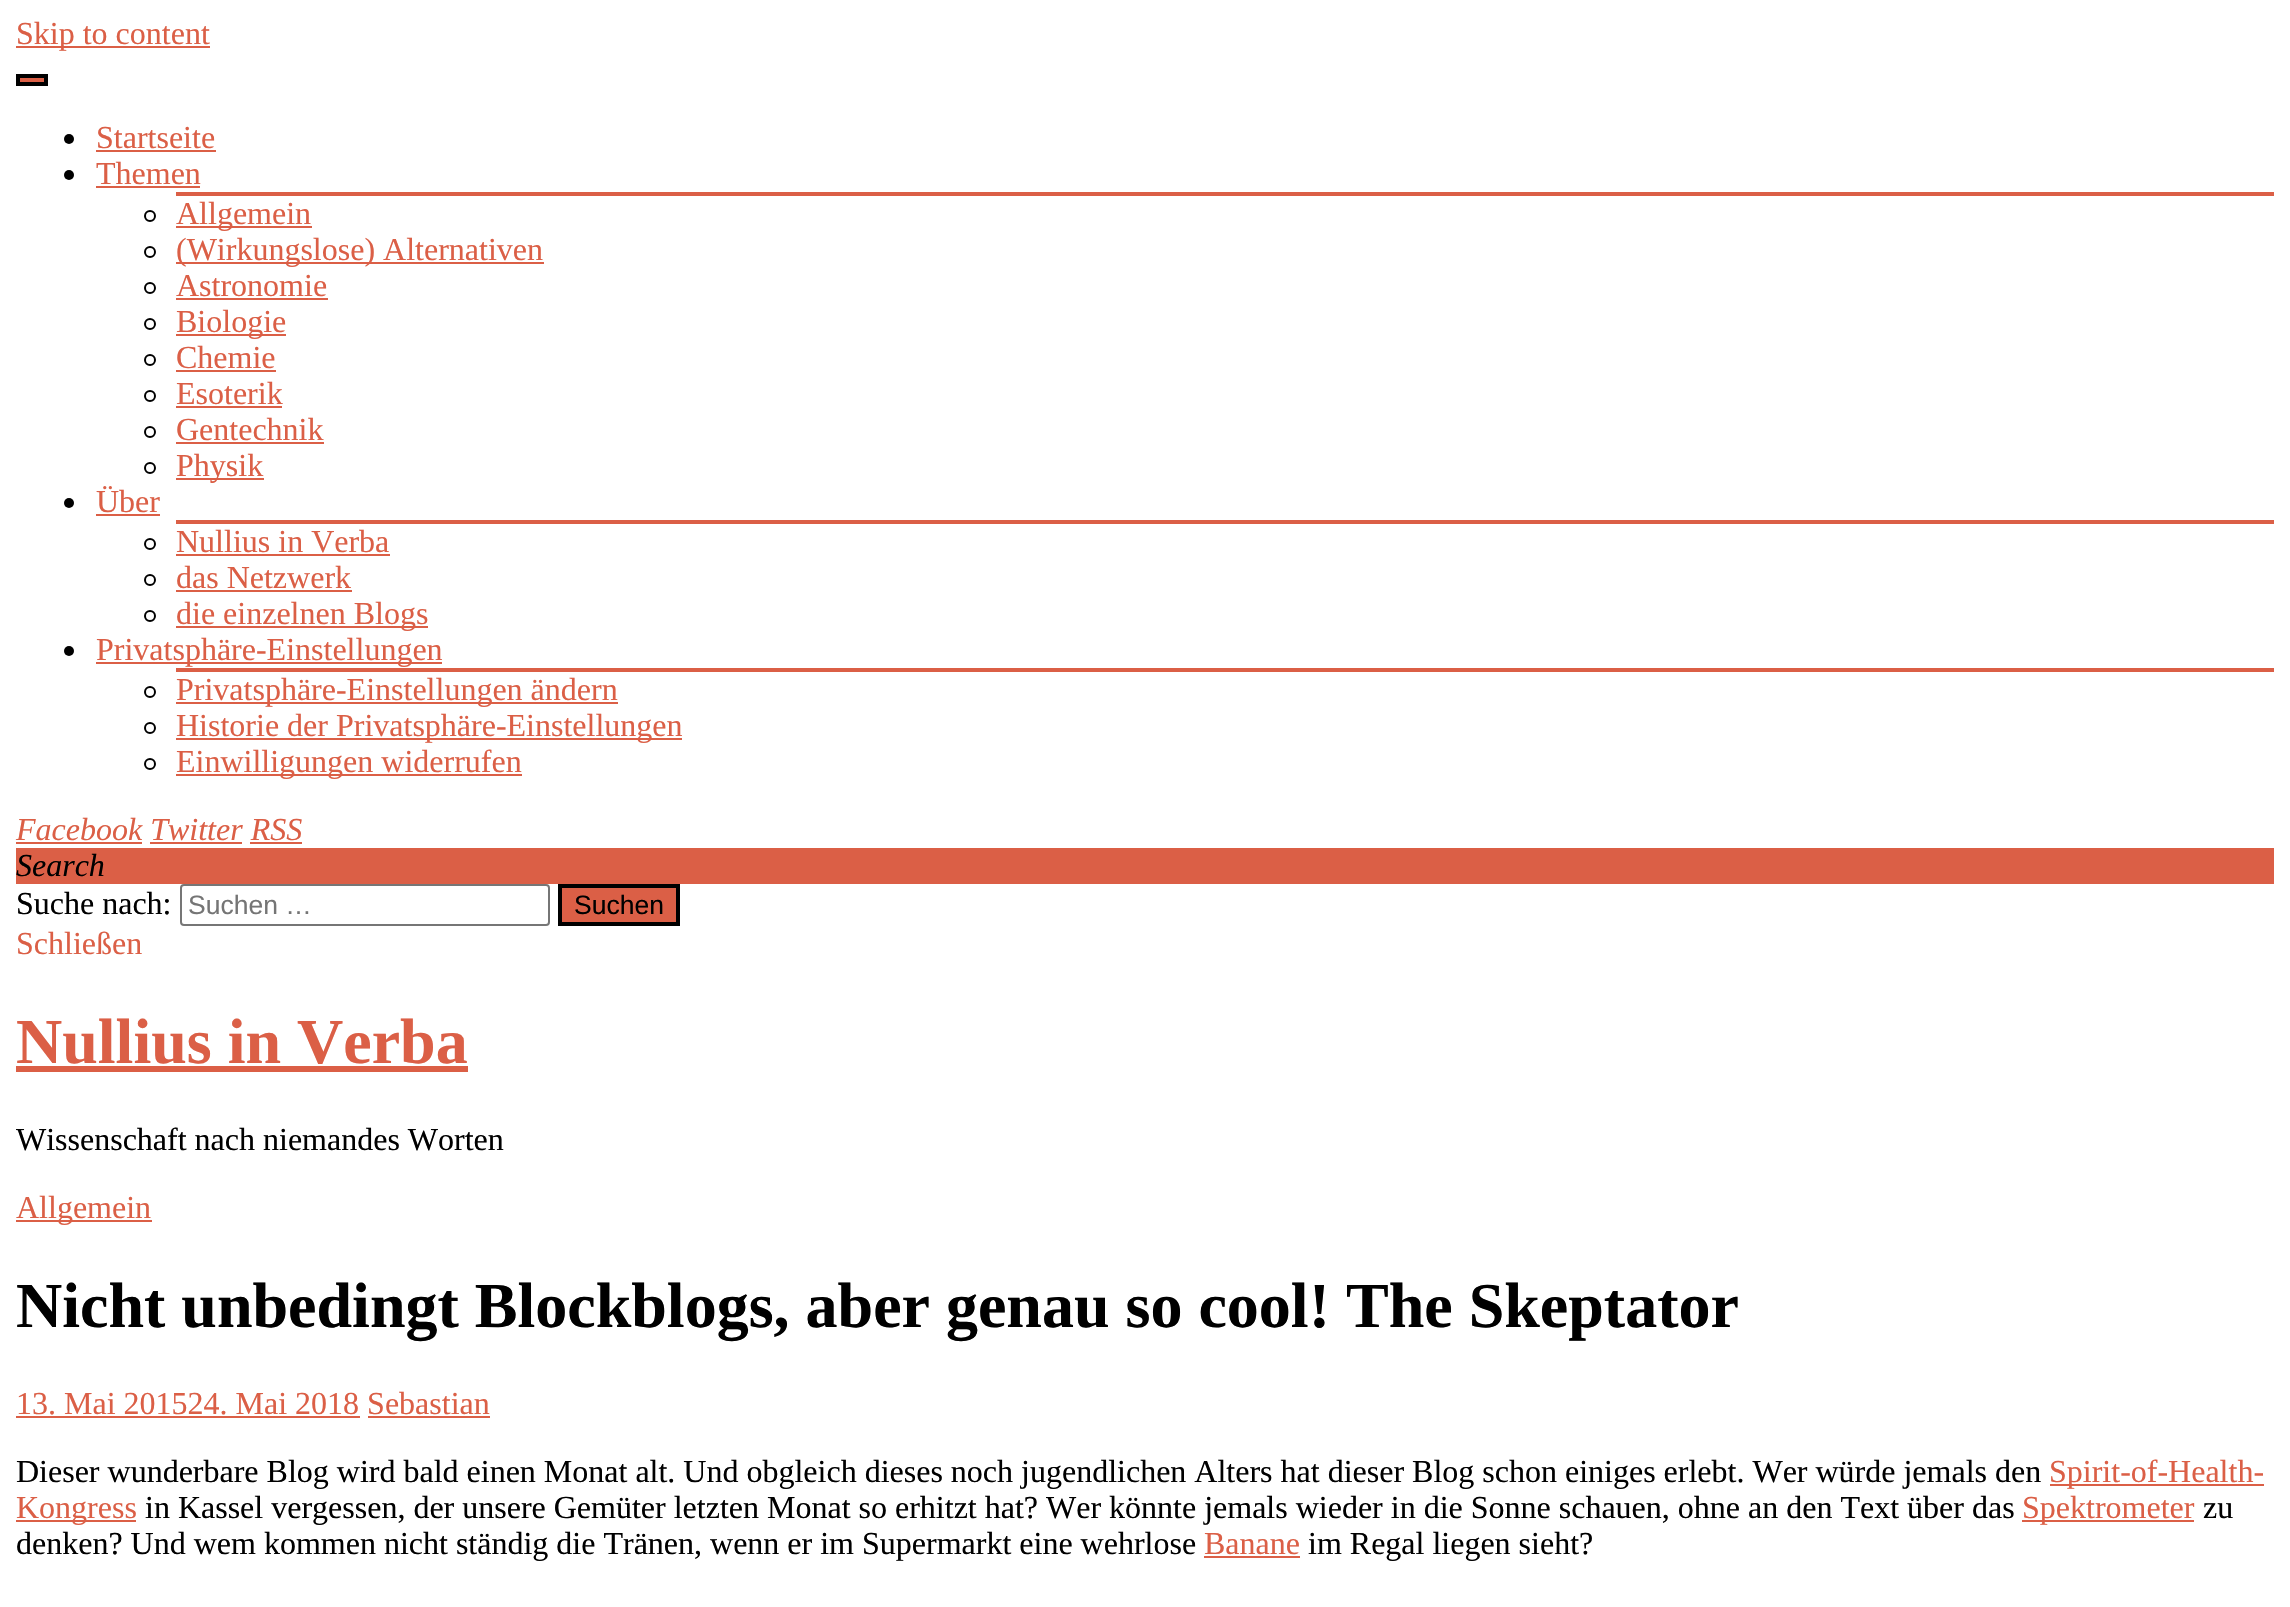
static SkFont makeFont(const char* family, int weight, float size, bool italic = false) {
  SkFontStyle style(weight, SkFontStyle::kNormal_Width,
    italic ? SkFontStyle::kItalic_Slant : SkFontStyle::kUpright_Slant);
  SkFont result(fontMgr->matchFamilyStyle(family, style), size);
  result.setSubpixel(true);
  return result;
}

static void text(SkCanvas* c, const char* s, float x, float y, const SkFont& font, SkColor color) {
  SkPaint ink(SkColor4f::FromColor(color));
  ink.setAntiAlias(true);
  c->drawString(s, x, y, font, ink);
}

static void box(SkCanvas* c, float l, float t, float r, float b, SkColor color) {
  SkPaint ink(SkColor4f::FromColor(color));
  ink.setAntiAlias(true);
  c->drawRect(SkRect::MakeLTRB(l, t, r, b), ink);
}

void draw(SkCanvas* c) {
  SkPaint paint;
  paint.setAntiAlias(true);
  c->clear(0xffffffff);
  box(c, 16, 46, 210, 48, 0xffdb5f46);
  SkFont face1 = makeFont("Liberation Serif", 400, 32);
  text(c, "Skip to content", 16, 44, face1, 0xffdb5f46);
  paint.setColor(0xffdb5f46);
  c->drawRect(SkRect::MakeLTRB(18, 76, 46, 84), paint);
  paint.setStyle(SkPaint::kStroke_Style);
  paint.setStrokeWidth(4);
  paint.setColor(0xff000000);
  c->drawRect(SkRect::MakeLTRB(18, 76, 46, 84), paint);
  paint.setStyle(SkPaint::kFill_Style);
  c->drawCircle(69, 139, 5, paint);
  text(c, "Startseite", 96, 148, face1, 0xffdb5f46);
  box(c, 96, 150, 216, 152, 0xffdb5f46);
  c->drawCircle(69, 175, 5, paint);
  text(c, "Themen", 96, 184, face1, 0xffdb5f46);
  box(c, 96, 186, 200, 188, 0xffdb5f46);
  box(c, 176, 192, 2274, 196, 0xffdb5f46);
  paint.setStyle(SkPaint::kStroke_Style);
  paint.setStrokeWidth(2);
  c->drawCircle(150, 216, 5, paint);
  box(c, 176, 226, 312, 228, 0xffdb5f46);
  text(c, "Allgemein", 176, 224, face1, 0xffdb5f46);
  c->drawCircle(150, 252, 5, paint);
  box(c, 176, 262, 544, 264, 0xffdb5f46);
  text(c, "(Wirkungslose) Alternativen", 176, 260, face1, 0xffdb5f46);
  c->drawCircle(150, 288, 5, paint);
  text(c, "Astronomie", 176, 296, face1, 0xffdb5f46);
  box(c, 176, 298, 328, 300, 0xffdb5f46);
  c->drawCircle(150, 324, 5, paint);
  box(c, 176, 334, 286, 336, 0xffdb5f46);
  text(c, "Biologie", 176, 332, face1, 0xffdb5f46);
  c->drawCircle(150, 360, 5, paint);
  text(c, "Chemie", 176, 368, face1, 0xffdb5f46);
  box(c, 176, 370, 276, 372, 0xffdb5f46);
  c->drawCircle(150, 396, 5, paint);
  text(c, "Esoterik", 176, 404, face1, 0xffdb5f46);
  box(c, 176, 406, 282, 408, 0xffdb5f46);
  c->drawCircle(150, 432, 5, paint);
  text(c, "Gentechnik", 176, 440, face1, 0xffdb5f46);
  box(c, 176, 442, 324, 444, 0xffdb5f46);
  c->drawCircle(150, 468, 5, paint);
  box(c, 176, 478, 264, 480, 0xffdb5f46);
  text(c, "Physik", 176, 476, face1, 0xffdb5f46);
  paint.setStyle(SkPaint::kFill_Style);
  c->drawCircle(69, 503, 5, paint);
  text(c, "Über", 96, 512, face1, 0xffdb5f46);
  box(c, 96, 514, 160, 516, 0xffdb5f46);
  box(c, 176, 520, 2274, 524, 0xffdb5f46);
  paint.setStyle(SkPaint::kStroke_Style);
  c->drawCircle(150, 544, 5, paint);
  text(c, "Nullius in Verba", 176, 552, face1, 0xffdb5f46);
  box(c, 176, 554, 390, 556, 0xffdb5f46);
  c->drawCircle(150, 580, 5, paint);
  text(c, "das Netzwerk", 176, 588, face1, 0xffdb5f46);
  box(c, 176, 590, 352, 592, 0xffdb5f46);
  c->drawCircle(150, 616, 5, paint);
  box(c, 176, 626, 428, 628, 0xffdb5f46);
  text(c, "die einzelnen Blogs", 176, 624, face1, 0xffdb5f46);
  paint.setStyle(SkPaint::kFill_Style);
  c->drawCircle(69, 651, 5, paint);
  box(c, 96, 662, 442, 664, 0xffdb5f46);
  text(c, "Privatsphäre-Einstellungen", 96, 660, face1, 0xffdb5f46);
  box(c, 176, 668, 2274, 672, 0xffdb5f46);
  paint.setStyle(SkPaint::kStroke_Style);
  c->drawCircle(150, 692, 5, paint);
  box(c, 176, 702, 618, 704, 0xffdb5f46);
  text(c, "Privatsphäre-Einstellungen ändern", 176, 700, face1, 0xffdb5f46);
  c->drawCircle(150, 728, 5, paint);
  box(c, 176, 738, 682, 740, 0xffdb5f46);
  text(c, "Historie der Privatsphäre-Einstellungen", 176, 736, face1, 0xffdb5f46);
  c->drawCircle(150, 764, 5, paint);
  box(c, 176, 774, 522, 776, 0xffdb5f46);
  text(c, "Einwilligungen widerrufen", 176, 772, face1, 0xffdb5f46);
  SkFont face2 = makeFont("Liberation Serif", 400, 32, true);
  text(c, "Facebook Twitter RSS", 16, 840, face2, 0xffdb5f46);
  box(c, 16, 842, 142, 844, 0xffdb5f46);
  box(c, 150, 842, 242, 844, 0xffdb5f46);
  box(c, 250, 842, 302, 844, 0xffdb5f46);
  box(c, 16, 848, 2274, 884, 0xffdb5f46);
  text(c, "Search", 16, 876, face2, 0xff000000);
  text(c, "Suche nach:", 16, 914, face1, 0xff000000);
  paint.setColor(0xff767676);
  c->drawRoundRect(SkRect::MakeLTRB(181, 885, 549, 925), 3, 3, paint);
  SkFont face3 = makeFont("Liberation Sans", 400, 26.5f);
  text(c, "Suchen …", 188, 914, face3, 0xff757575);
  paint.setStyle(SkPaint::kFill_Style);
  paint.setColor(0xffdb5f46);
  c->drawRect(SkRect::MakeLTRB(560, 886, 678, 924), paint);
  paint.setStyle(SkPaint::kStroke_Style);
  paint.setStrokeWidth(4);
  paint.setColor(0xff000000);
  c->drawRect(SkRect::MakeLTRB(560, 886, 678, 924), paint);
  text(c, "Suchen", 574, 914, face3, 0xff000000);
  text(c, "Schließen", 16, 954, face1, 0xffdb5f46);
  SkFont face4 = makeFont("Liberation Serif", 700, 64);
  text(c, "Nullius in Verba", 16, 1063, face4, 0xffdb5f46);
  box(c, 16, 1066, 468, 1072, 0xffdb5f46);
  text(c, "Wissenschaft nach niemandes Worten", 16, 1150, face1, 0xff000000);
  box(c, 16, 1220, 152, 1222, 0xffdb5f46);
  text(c, "Allgemein", 16, 1218, face1, 0xffdb5f46);
  text(c, "Nicht unbedingt Blockblogs, aber genau so cool! The Skeptator", 16, 1327, face4, 0xff000000);
  text(c, "13. Mai 201524. Mai 2018 Sebastian", 16, 1414, face1, 0xffdb5f46);
  box(c, 16, 1416, 360, 1418, 0xffdb5f46);
  box(c, 368, 1416, 490, 1418, 0xffdb5f46);
  text(c, "Dieser wunderbare Blog wird bald einen Monat alt. Und obgleich dieses noch jugendlichen Alters hat dieser Blog schon einiges erlebt. Wer würde jemals den", 16, 1482, face1, 0xff000000);
  box(c, 2050, 1484, 2264, 1486, 0xffdb5f46);
  text(c, "Spirit-of-Health-", 2049, 1482, face1, 0xffdb5f46);
  box(c, 16, 1520, 136, 1522, 0xffdb5f46);
  text(c, "Kongress", 16, 1518, face1, 0xffdb5f46);
  text(c, "in Kassel vergessen, der unsere Gemüter letzten Monat so erhitzt hat? Wer könnte jemals wieder in die Sonne schauen, ohne an den Text über das", 145, 1518, face1, 0xff000000);
  box(c, 2022, 1520, 2194, 1522, 0xffdb5f46);
  text(c, "Spektrometer", 2022, 1518, face1, 0xffdb5f46);
  text(c, "zu", 2203, 1518, face1, 0xff000000);
  text(c, "denken? Und wem kommen nicht ständig die Tränen, wenn er im Supermarkt eine wehrlose", 16, 1554, face1, 0xff000000);
  text(c, "Banane", 1204, 1554, face1, 0xffdb5f46);
  box(c, 1204, 1556, 1300, 1558, 0xffdb5f46);
  text(c, "im Regal liegen sieht?", 1308, 1554, face1, 0xff000000);
}
